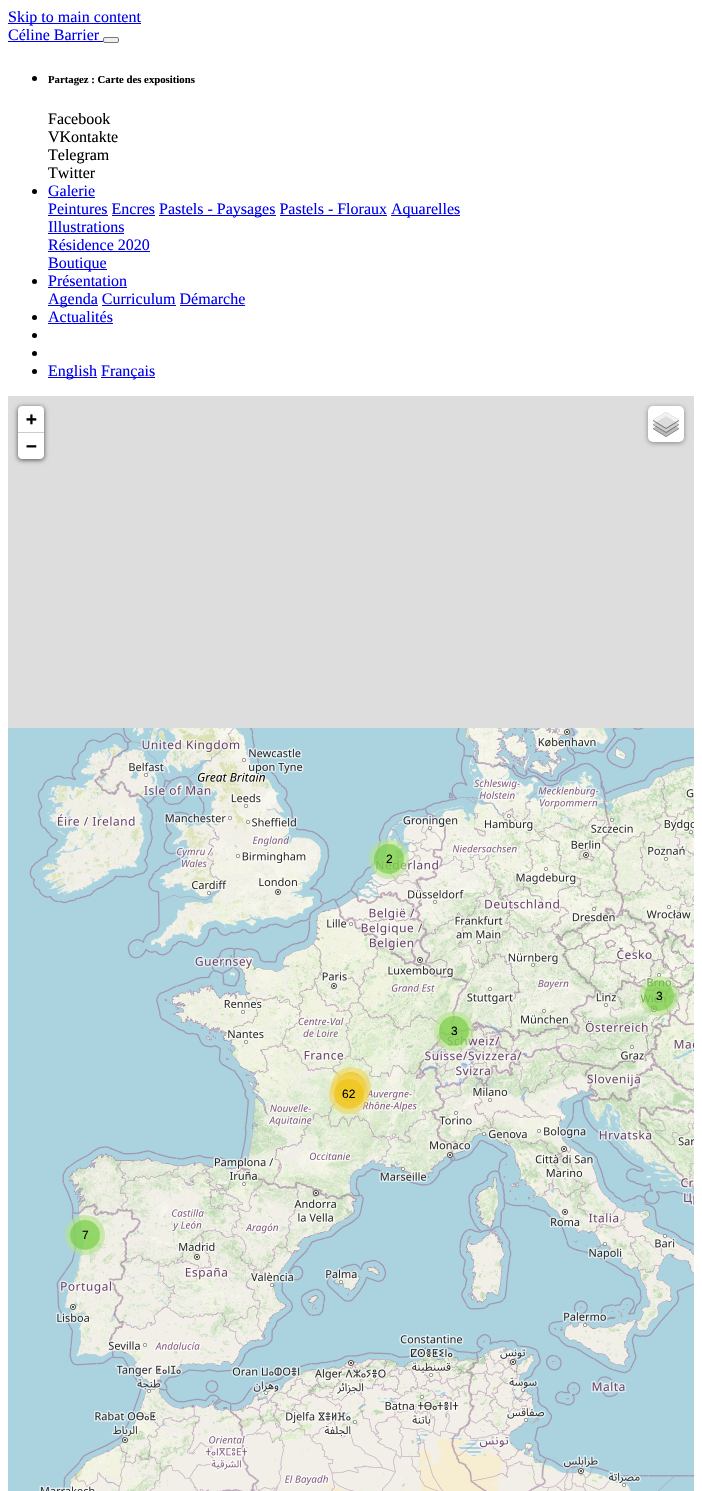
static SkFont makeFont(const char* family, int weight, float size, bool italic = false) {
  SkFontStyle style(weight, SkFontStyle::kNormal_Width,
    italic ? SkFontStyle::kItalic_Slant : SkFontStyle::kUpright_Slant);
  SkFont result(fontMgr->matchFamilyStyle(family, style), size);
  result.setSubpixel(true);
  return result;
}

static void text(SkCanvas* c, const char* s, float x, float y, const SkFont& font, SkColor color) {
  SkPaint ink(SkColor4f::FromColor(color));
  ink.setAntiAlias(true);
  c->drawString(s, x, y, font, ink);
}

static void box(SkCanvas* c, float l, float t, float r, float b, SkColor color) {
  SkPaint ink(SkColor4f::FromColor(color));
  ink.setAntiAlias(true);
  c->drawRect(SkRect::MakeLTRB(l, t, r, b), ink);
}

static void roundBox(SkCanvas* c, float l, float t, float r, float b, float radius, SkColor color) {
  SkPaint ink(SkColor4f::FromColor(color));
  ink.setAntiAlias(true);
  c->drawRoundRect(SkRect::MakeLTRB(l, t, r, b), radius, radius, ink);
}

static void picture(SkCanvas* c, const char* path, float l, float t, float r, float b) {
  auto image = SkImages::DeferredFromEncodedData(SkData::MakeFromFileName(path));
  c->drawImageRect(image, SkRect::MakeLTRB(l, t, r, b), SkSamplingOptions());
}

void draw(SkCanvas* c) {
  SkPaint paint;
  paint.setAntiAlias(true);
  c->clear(0xffffffff);
  box(c, 8, 23, 141, 24, 0xff0000ee);
  SkFont face1 = makeFont("Liberation Serif", 400, 16);
  text(c, "Skip to main content", 8, 22, face1, 0xff0000ee);
  text(c, "Céline Barrier", 8, 40, face1, 0xff0000ee);
  box(c, 8, 41, 103, 42, 0xff0000ee);
  paint.setColor(0xffefefef);
  c->drawRoundRect(SkRect::MakeLTRB(103.5f, 37.5f, 118.5f, 42.5f), 1.5f, 1.5f, paint);
  paint.setStyle(SkPaint::kStroke_Style);
  paint.setStrokeWidth(1);
  paint.setColor(0xff767676);
  c->drawRoundRect(SkRect::MakeLTRB(103.5f, 37.5f, 118.5f, 42.5f), 1.5f, 1.5f, paint);
  paint.setStyle(SkPaint::kFill_Style);
  paint.setColor(0xff000000);
  c->drawCircle(34.5f, 78.5f, 2.5f, paint);
  SkFont face2 = makeFont("Liberation Serif", 700, 10.75f);
  text(c, "Partagez : Carte des expositions", 48, 83, face2, 0xff000000);
  text(c, "Facebook", 48, 124, face1, 0xff000000);
  text(c, "VKontakte", 48, 142, face1, 0xff000000);
  text(c, "Telegram", 48, 160, face1, 0xff000000);
  text(c, "Twitter", 48, 178, face1, 0xff000000);
  c->drawCircle(34.5f, 191.5f, 2.5f, paint);
  text(c, "Galerie", 48, 196, face1, 0xff0000ee);
  box(c, 48, 197, 95, 198, 0xff0000ee);
  text(c, "Peintures Encres", 48, 214, face1, 0xff0000ee);
  box(c, 48, 215, 108, 216, 0xff0000ee);
  box(c, 159, 215, 276, 216, 0xff0000ee);
  text(c, "Pastels - Paysages Pastels - Floraux", 159, 214, face1, 0xff0000ee);
  box(c, 391, 215, 460, 216, 0xff0000ee);
  text(c, "Aquarelles", 391, 214, face1, 0xff0000ee);
  box(c, 112, 215, 155, 216, 0xff0000ee);
  box(c, 280, 215, 387, 216, 0xff0000ee);
  text(c, "Illustrations", 48, 232, face1, 0xff0000ee);
  box(c, 48, 233, 124, 234, 0xff0000ee);
  text(c, "Résidence 2020", 48, 250, face1, 0xff0000ee);
  box(c, 48, 251, 150, 252, 0xff0000ee);
  box(c, 48, 269, 107, 270, 0xff0000ee);
  text(c, "Boutique", 48, 268, face1, 0xff0000ee);
  c->drawCircle(34.5f, 281.5f, 2.5f, paint);
  text(c, "Présentation", 48, 286, face1, 0xff0000ee);
  box(c, 48, 287, 127, 288, 0xff0000ee);
  box(c, 48, 305, 98, 306, 0xff0000ee);
  text(c, "Agenda Curriculum Démarche", 48, 304, face1, 0xff0000ee);
  box(c, 102, 305, 176, 306, 0xff0000ee);
  box(c, 180, 305, 245, 306, 0xff0000ee);
  c->drawCircle(34.5f, 317.5f, 2.5f, paint);
  text(c, "Actualités", 48, 322, face1, 0xff0000ee);
  box(c, 48, 323, 113, 324, 0xff0000ee);
  c->drawCircle(34.5f, 335.5f, 2.5f, paint);
  c->drawCircle(34.5f, 353.5f, 2.5f, paint);
  c->drawCircle(34.5f, 371.5f, 2.5f, paint);
  box(c, 48, 377, 97, 378, 0xff0000ee);
  text(c, "English", 48, 376, face1, 0xff0000ee);
  box(c, 101, 377, 155, 378, 0xff0000ee);
  text(c, "Français", 101, 376, face1, 0xff0000ee);
  box(c, 8, 396, 694, 728, 0xffdddddd);
  paint.setColor(0xa6000000);
  paint.setMaskFilter(SkMaskFilter::MakeBlur(kNormal_SkBlurStyle, 2.5f));
  c->drawRoundRect(SkRect::MakeLTRB(18, 407, 44, 460), 4, 4, paint);
  paint.setMaskFilter(nullptr);
  paint.setColor(0xffffffff);
  c->drawPath(SkPathBuilder().moveTo(22, 406).lineTo(40, 406).cubicTo(42, 406, 44, 408, 44, 410).lineTo(44, 433).lineTo(18, 433).lineTo(18, 410).cubicTo(18, 408, 20, 406, 22, 406).close().detach(), paint);
  box(c, 18, 432, 44, 433, 0xffcccccc);
  SkFont face3 = makeFont("DejaVu Sans Mono", 700, 18);
  text(c, "+", 26, 425, face3, 0xff000000);
  c->drawPath(SkPathBuilder().moveTo(18, 433).lineTo(44, 433).lineTo(44, 455).cubicTo(44, 457, 42, 459, 40, 459).lineTo(22, 459).cubicTo(20, 459, 18, 457, 18, 455).close().detach(), paint);
  text(c, "−", 26, 452, face3, 0xff000000);
  paint.setColor(0x66000000);
  paint.setMaskFilter(SkMaskFilter::MakeBlur(kNormal_SkBlurStyle, 2.5f));
  c->drawRoundRect(SkRect::MakeLTRB(648, 407, 684, 443), 5, 5, paint);
  paint.setMaskFilter(nullptr);
  roundBox(c, 648, 406, 684, 442, 5, 0xffffffff);
  picture(c, "img_01.png", 653, 412, 679, 437);
  box(c, 8, 728, 25, 1491, 0xffaad3df);
  picture(c, "img_02.png", 25, 728, 281, 984);
  picture(c, "img_03.png", 281, 728, 537, 984);
  picture(c, "img_04.png", 537, 728, 694, 984);
  picture(c, "img_05.png", 25, 984, 281, 1240);
  picture(c, "img_06.png", 281, 984, 537, 1240);
  picture(c, "img_07.png", 537, 984, 694, 1240);
  picture(c, "img_08.png", 25, 1240, 281, 1491);
  picture(c, "img_09.png", 281, 1240, 537, 1491);
  picture(c, "img_10.png", 537, 1240, 694, 1491);
  paint.setColor(0x99b5e28c);
  c->drawCircle(389, 859, 20, paint);
  paint.setColor(0x996ecc39);
  c->drawCircle(389, 859, 15, paint);
  SkFont face4 = makeFont("Liberation Sans", 400, 12);
  text(c, "2", 386, 863, face4, 0xff000000);
  paint.setColor(0x99b5e28c);
  c->drawCircle(659, 996, 20, paint);
  paint.setColor(0x996ecc39);
  c->drawCircle(659, 996, 15, paint);
  text(c, "3", 656, 1000, face4, 0xff000000);
  paint.setColor(0x99b5e28c);
  c->drawCircle(454, 1031, 20, paint);
  paint.setColor(0x996ecc39);
  c->drawCircle(454, 1031, 15, paint);
  text(c, "3", 451, 1035, face4, 0xff000000);
  paint.setColor(0x99f1d357);
  c->drawCircle(351, 1087, 20, paint);
  paint.setColor(0x99f0c20c);
  c->drawCircle(351, 1087, 15, paint);
  paint.setColor(0x99f1d357);
  c->drawCircle(349, 1094, 20, paint);
  paint.setColor(0x99f0c20c);
  c->drawCircle(349, 1094, 15, paint);
  text(c, "62", 342, 1098, face4, 0xff000000);
  paint.setColor(0x99b5e28c);
  c->drawCircle(85, 1235, 20, paint);
  paint.setColor(0x996ecc39);
  c->drawCircle(85, 1235, 15, paint);
  text(c, "7", 82, 1239, face4, 0xff000000);
}
